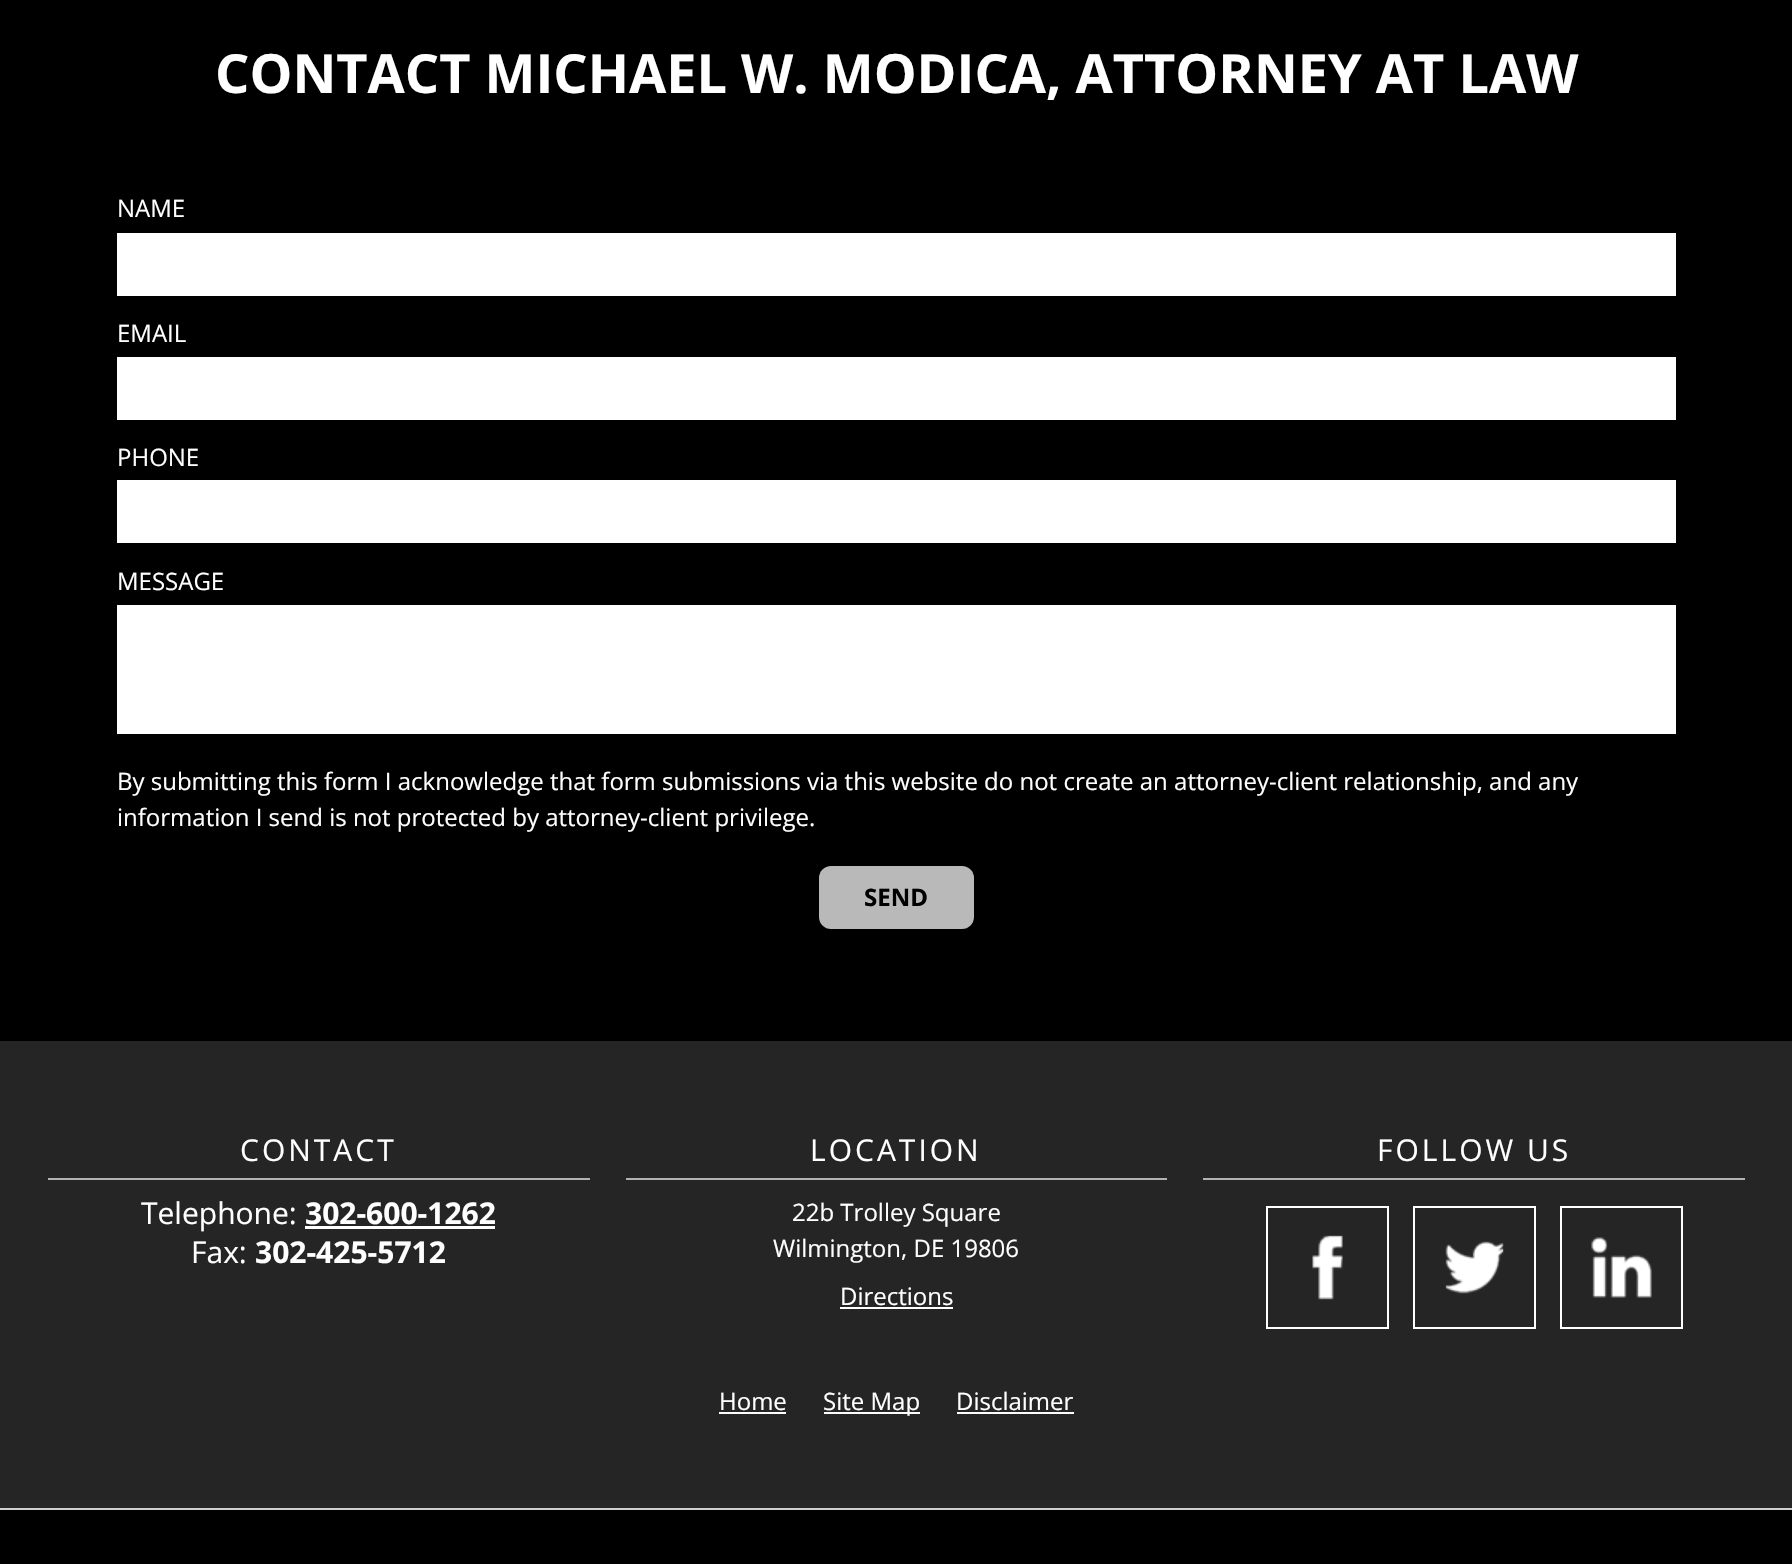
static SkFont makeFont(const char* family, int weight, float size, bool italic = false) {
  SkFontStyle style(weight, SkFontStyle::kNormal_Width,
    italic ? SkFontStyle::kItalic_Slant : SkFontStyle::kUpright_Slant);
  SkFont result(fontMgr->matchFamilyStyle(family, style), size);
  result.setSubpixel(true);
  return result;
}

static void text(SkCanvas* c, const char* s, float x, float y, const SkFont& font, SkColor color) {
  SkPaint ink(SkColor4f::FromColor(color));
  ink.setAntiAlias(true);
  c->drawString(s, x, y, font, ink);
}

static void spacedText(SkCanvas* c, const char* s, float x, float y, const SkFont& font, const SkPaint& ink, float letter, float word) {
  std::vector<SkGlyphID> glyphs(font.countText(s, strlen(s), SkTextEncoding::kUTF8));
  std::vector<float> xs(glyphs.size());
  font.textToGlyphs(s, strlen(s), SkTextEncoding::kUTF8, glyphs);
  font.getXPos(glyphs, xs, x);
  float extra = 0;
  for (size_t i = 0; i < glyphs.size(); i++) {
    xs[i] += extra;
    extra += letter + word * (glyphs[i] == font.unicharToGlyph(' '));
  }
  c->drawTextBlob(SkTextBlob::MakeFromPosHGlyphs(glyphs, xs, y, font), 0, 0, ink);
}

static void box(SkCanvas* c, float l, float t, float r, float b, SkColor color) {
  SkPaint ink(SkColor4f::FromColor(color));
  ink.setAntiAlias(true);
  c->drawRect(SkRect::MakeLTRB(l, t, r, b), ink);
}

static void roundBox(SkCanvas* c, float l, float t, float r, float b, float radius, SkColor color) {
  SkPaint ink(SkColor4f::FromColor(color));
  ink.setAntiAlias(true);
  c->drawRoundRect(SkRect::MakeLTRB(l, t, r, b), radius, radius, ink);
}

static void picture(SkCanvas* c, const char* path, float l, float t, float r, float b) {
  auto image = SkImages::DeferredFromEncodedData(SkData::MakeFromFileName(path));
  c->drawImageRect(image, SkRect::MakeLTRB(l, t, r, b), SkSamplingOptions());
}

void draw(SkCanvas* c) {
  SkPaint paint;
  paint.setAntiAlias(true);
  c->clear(0xff000000);
  SkFont face1 = makeFont("Open Sans", 700, 54);
  text(c, "CONTACT MICHAEL W. MODICA, ATTORNEY AT LAW", 215, 93, face1, 0xffffffff);
  SkFont face2 = makeFont("Open Sans", 400, 24);
  text(c, "NAME", 117, 217, face2, 0xffffffff);
  box(c, 117, 233, 1676, 296, 0xffffffff);
  text(c, "EMAIL", 117, 342, face2, 0xffffffff);
  box(c, 117, 357, 1676, 420, 0xffffffff);
  text(c, "PHONE", 117, 466, face2, 0xffffffff);
  box(c, 117, 480, 1676, 543, 0xffffffff);
  text(c, "MESSAGE", 117, 590, face2, 0xffffffff);
  box(c, 117, 605, 1676, 734, 0xffffffff);
  text(c, "By submitting this form I acknowledge that form submissions via this website do not create an attorney-client relationship, and any", 117, 790, face2, 0xffffffff);
  text(c, "information I send is not protected by attorney-client privilege.", 117, 826, face2, 0xffffffff);
  roundBox(c, 819, 866, 974, 929, 12, 0xffb9b9b9);
  SkFont face3 = makeFont("Open Sans", 700, 24);
  text(c, "SEND", 864, 906, face3, 0xff000000);
  box(c, 0, 1041, 1792, 1508, 0xff252525);
  box(c, 48, 1178, 590, 1180, 0xffb2b2b2);
  SkFont face4 = makeFont("Open Sans", 400, 30);
  paint.setColor(0xffffffff);
  spacedText(c, "CONTACT", 240, 1161, face4, paint, 3, 0);
  text(c, "Telephone:", 141, 1224, face4, 0xffffffff);
  SkFont face5 = makeFont("Open Sans", 700, 30);
  text(c, "302-600-1262", 305, 1224, face5, 0xffffffff);
  box(c, 305, 1226, 495, 1229, 0xffffffff);
  text(c, "Fax:", 191, 1263, face4, 0xffffffff);
  text(c, "302-425-5712", 255, 1263, face5, 0xffffffff);
  box(c, 626, 1178, 1167, 1180, 0xffb2b2b2);
  spacedText(c, "LOCATION", 810, 1161, face4, paint, 3, 0);
  text(c, "22b Trolley Square", 792, 1221, face2, 0xffffffff);
  text(c, "Wilmington, DE 19806", 773, 1257, face2, 0xffffffff);
  text(c, "Directions", 840, 1305, face2, 0xffffffff);
  box(c, 840, 1307, 953, 1309, 0xffffffff);
  box(c, 1203, 1178, 1745, 1180, 0xffb2b2b2);
  spacedText(c, "FOLLOW US", 1377, 1161, face4, paint, 3, 0);
  paint.setStyle(SkPaint::kStroke_Style);
  paint.setStrokeWidth(2);
  c->drawRect(SkRect::MakeLTRB(1267, 1207, 1388, 1328), paint);
  picture(c, "img_01.png", 1312, 1235, 1343, 1300);
  c->drawRect(SkRect::MakeLTRB(1414, 1207, 1535, 1328), paint);
  picture(c, "img_02.png", 1445, 1241, 1504, 1294);
  c->drawRect(SkRect::MakeLTRB(1561, 1207, 1682, 1328), paint);
  picture(c, "img_03.png", 1591, 1237, 1652, 1298);
  text(c, "Home", 719, 1410, face2, 0xffffffff);
  box(c, 719, 1412, 786, 1414, 0xffffffff);
  box(c, 824, 1412, 920, 1414, 0xffffffff);
  text(c, "Site Map", 823, 1410, face2, 0xffffffff);
  text(c, "Disclaimer", 956, 1410, face2, 0xffffffff);
  box(c, 957, 1412, 1074, 1414, 0xffffffff);
  box(c, 0, 1508, 1792, 1510, 0xffcecece);
}
